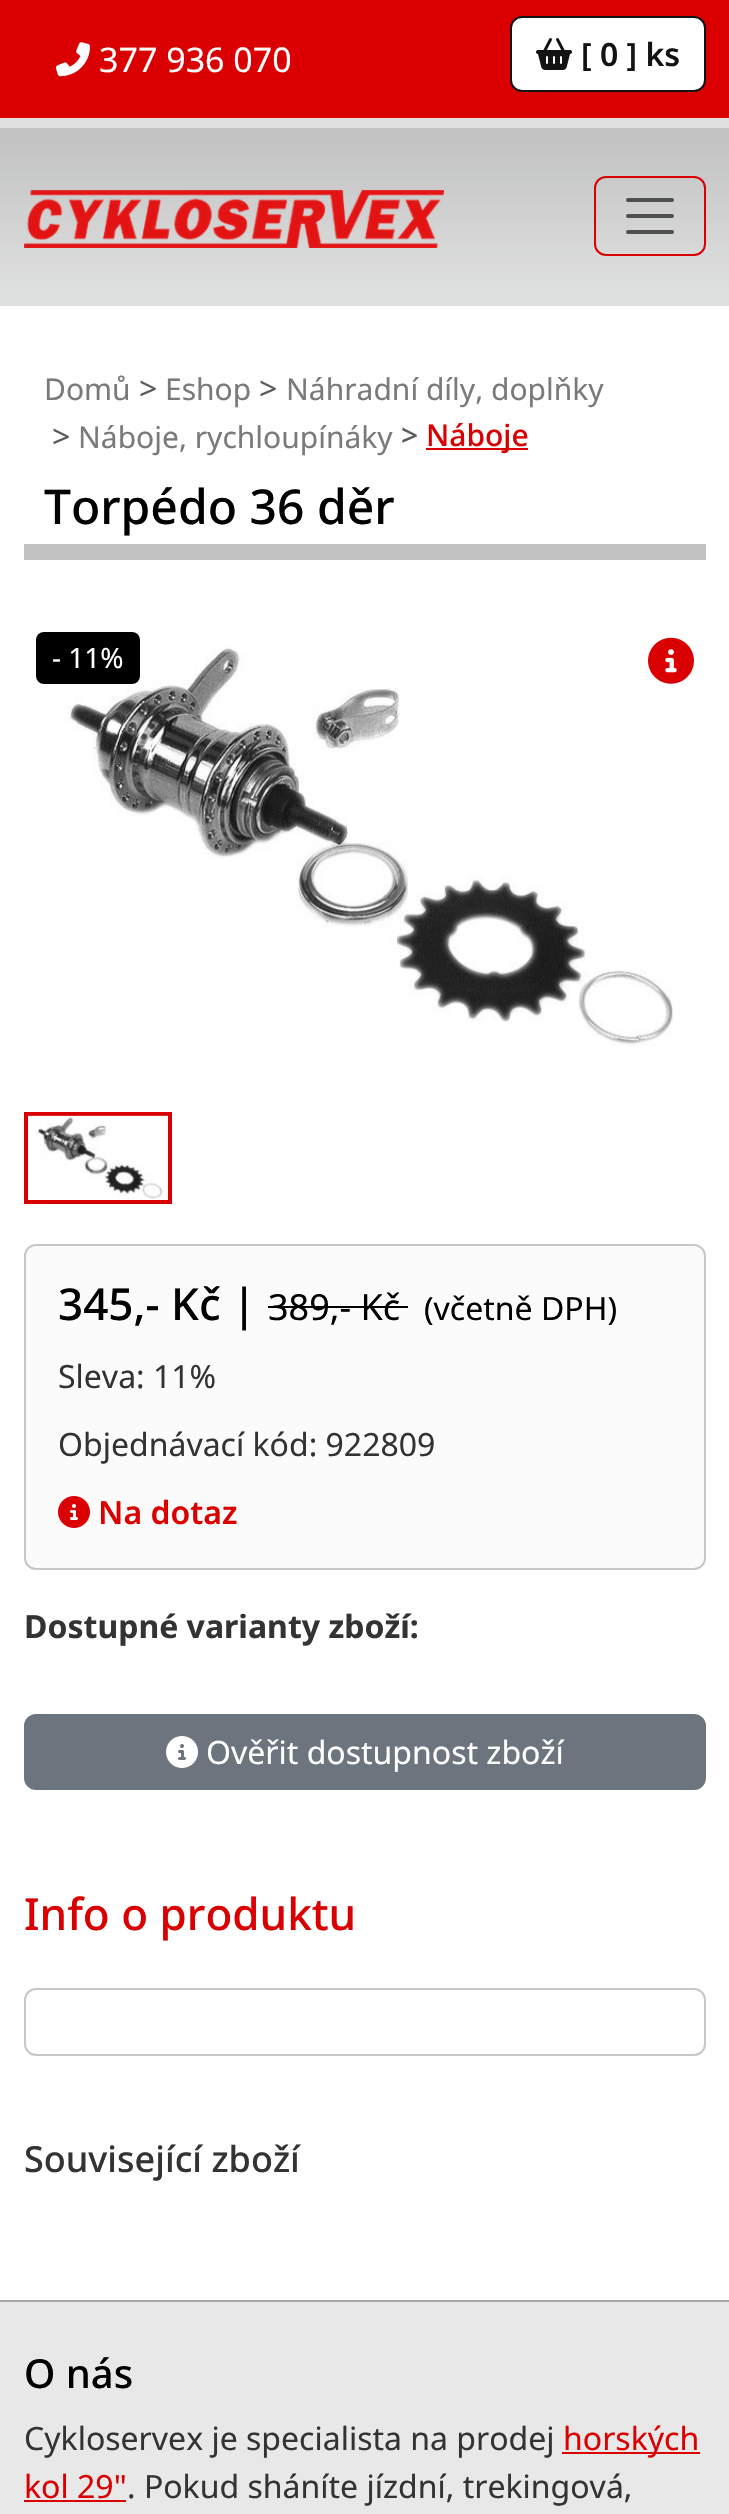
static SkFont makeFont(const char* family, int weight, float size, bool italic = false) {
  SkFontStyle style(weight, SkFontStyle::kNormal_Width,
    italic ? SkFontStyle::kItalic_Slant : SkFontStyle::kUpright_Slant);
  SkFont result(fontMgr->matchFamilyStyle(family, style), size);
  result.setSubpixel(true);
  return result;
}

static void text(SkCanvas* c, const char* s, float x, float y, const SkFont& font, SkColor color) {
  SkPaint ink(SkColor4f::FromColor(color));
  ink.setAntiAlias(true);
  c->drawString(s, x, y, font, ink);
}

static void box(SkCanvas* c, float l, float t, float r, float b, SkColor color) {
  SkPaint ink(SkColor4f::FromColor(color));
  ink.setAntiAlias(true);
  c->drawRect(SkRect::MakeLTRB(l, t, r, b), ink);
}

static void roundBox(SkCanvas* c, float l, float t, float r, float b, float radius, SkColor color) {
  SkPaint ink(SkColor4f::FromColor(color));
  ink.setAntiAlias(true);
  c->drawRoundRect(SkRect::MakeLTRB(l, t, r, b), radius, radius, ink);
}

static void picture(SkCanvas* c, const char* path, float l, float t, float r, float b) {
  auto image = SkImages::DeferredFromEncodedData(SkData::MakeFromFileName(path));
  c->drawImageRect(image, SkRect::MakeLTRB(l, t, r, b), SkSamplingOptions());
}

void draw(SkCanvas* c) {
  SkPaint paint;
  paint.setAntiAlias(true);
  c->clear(0xffffffff);
  box(c, 0, 0, 729, 118, 0xffda0001);
  box(c, 0, 118, 729, 128, 0xffe0e0e0);
  picture(c, "img_01.png", 56, 42, 90, 77);
  SkFont face1 = makeFont("Noto Sans", 400, 34);
  text(c, "377 936 070", 99, 72, face1, 0xffffffff);
  paint.setColor(0xffffffff);
  c->drawRoundRect(SkRect::MakeLTRB(511, 17, 705, 91), 11, 11, paint);
  paint.setStyle(SkPaint::kStroke_Style);
  paint.setStrokeWidth(2);
  paint.setColor(0xff131313);
  c->drawRoundRect(SkRect::MakeLTRB(511, 17, 705, 91), 11, 11, paint);
  picture(c, "img_02.png", 536, 38, 572, 70);
  SkFont face2 = makeFont("Noto Sans", 600, 32);
  text(c, "[ 0 ] ks", 581, 66, face2, 0xff131313);
  picture(c, "img_03.png", 0, 128, 729, 306);
  picture(c, "img_04.png", 24, 190, 444, 248);
  paint.setColor(0xffda0001);
  c->drawRoundRect(SkRect::MakeLTRB(595, 177, 705, 255), 11, 11, paint);
  paint.setStrokeWidth(4);
  paint.setStrokeCap(SkPaint::kRound_Cap);
  paint.setColor(0xbf212529);
  c->drawPath(SkPathBuilder().moveTo(628, 200).lineTo(672, 200).moveTo(628, 216).lineTo(672, 216).moveTo(628, 232).lineTo(672, 232).detach(), paint);
  box(c, 24, 544, 706, 560, 0xffc2c2c2);
  SkFont face3 = makeFont("Noto Sans", 400, 30);
  text(c, "Domů", 44, 400, face3, 0xff7a7a7a);
  SkFont face4 = makeFont("Noto Sans", 400, 32);
  text(c, ">", 139, 400, face4, 0xff595c5f);
  text(c, "Eshop", 165, 400, face3, 0xff7a7a7a);
  text(c, ">", 259, 400, face4, 0xff595c5f);
  text(c, "Náhradní díly, doplňky", 286, 400, face3, 0xff7a7a7a);
  text(c, ">", 52, 448, face4, 0xff595c5f);
  text(c, "Náboje, rychloupínáky", 78, 448, face3, 0xff7a7a7a);
  SkFont face5 = makeFont("Noto Sans", 500, 30);
  text(c, ">", 401, 446, face5, 0xff595c5f);
  box(c, 426, 448, 528, 450, 0xffda0001);
  text(c, "Náboje", 426, 446, face5, 0xffda0001);
  SkFont face6 = makeFont("Noto Sans", 500, 48);
  text(c, "Torpédo 36 děr", 44, 524, face6, 0xff000000);
  picture(c, "img_06.png", 67, 647, 673, 1046);
  roundBox(c, 36, 632, 140, 684, 8, 0xff000000);
  SkFont face7 = makeFont("Noto Sans", 400, 28);
  text(c, "- 11%", 52, 668, face7, 0xffffffff);
  picture(c, "img_05.png", 648, 637, 694, 684);
  paint.setStrokeCap(SkPaint::kButt_Cap);
  paint.setColor(0xffda0001);
  c->drawRect(SkRect::MakeLTRB(26, 1114, 170, 1202), paint);
  picture(c, "img_07.png", 28, 1115, 168, 1199);
  paint.setStyle(SkPaint::kFill_Style);
  paint.setColor(0xfffbfbfb);
  c->drawRoundRect(SkRect::MakeLTRB(25, 1245, 705, 1569), 11, 11, paint);
  paint.setStyle(SkPaint::kStroke_Style);
  paint.setStrokeWidth(2);
  paint.setColor(0xffc4c8cb);
  c->drawRoundRect(SkRect::MakeLTRB(25, 1245, 705, 1569), 11, 11, paint);
  SkFont face8 = makeFont("Noto Sans", 500, 44);
  text(c, "345,- Kč |", 58, 1320, face8, 0xff000000);
  SkFont face9 = makeFont("Noto Sans", 400, 36);
  text(c, "389,- Kč", 268, 1320, face9, 0xff000000);
  box(c, 268, 1306, 408, 1308, 0xff000000);
  text(c, "(včetně DPH)", 424, 1320, face4, 0xff000000);
  text(c, "Sleva: 11%", 58, 1388, face4, 0xff333333);
  text(c, "Objednávací kód: 922809", 58, 1456, face4, 0xff333333);
  picture(c, "img_08.png", 58, 1496, 90, 1528);
  text(c, "Na dotaz", 98, 1524, face2, 0xffda0001);
  SkFont face10 = makeFont("Noto Sans", 700, 32);
  text(c, "Dostupné varianty zboží:", 24, 1638, face10, 0xff333333);
  paint.setStyle(SkPaint::kFill_Style);
  paint.setColor(0xff6c757d);
  c->drawRoundRect(SkRect::MakeLTRB(25, 1715, 705, 1789), 11, 11, paint);
  paint.setStyle(SkPaint::kStroke_Style);
  c->drawRoundRect(SkRect::MakeLTRB(25, 1715, 705, 1789), 11, 11, paint);
  picture(c, "img_09.png", 166, 1736, 198, 1768);
  text(c, "Ověřit dostupnost zboží", 206, 1764, face4, 0xffffffff);
  text(c, "Info o produktu", 24, 1930, face8, 0xffda0001);
  paint.setColor(0xffc4c8cb);
  c->drawRoundRect(SkRect::MakeLTRB(25, 1989, 705, 2055), 11, 11, paint);
  SkFont face11 = makeFont("Noto Sans", 500, 36);
  text(c, "Související zboží", 24, 2172, face11, 0xff333333);
  box(c, 0, 2302, 729, 2514, 0xffe8e8e8);
  box(c, 0, 2300, 729, 2302, 0xffa8a8a8);
  SkFont face12 = makeFont("Noto Sans", 500, 40);
  text(c, "O nás", 24, 2388, face12, 0xff000000);
  text(c, "Cykloservex je specialista na prodej", 24, 2450, face4, 0xff333333);
  box(c, 562, 2452, 700, 2454, 0xffda0001);
  text(c, "horských", 563, 2450, face4, 0xffda0001);
  text(c, "kol 29\"", 24, 2498, face4, 0xffda0001);
  box(c, 24, 2500, 126, 2502, 0xffda0001);
  text(c, ". Pokud sháníte jízdní, trekingová,", 127, 2498, face4, 0xff333333);
}
